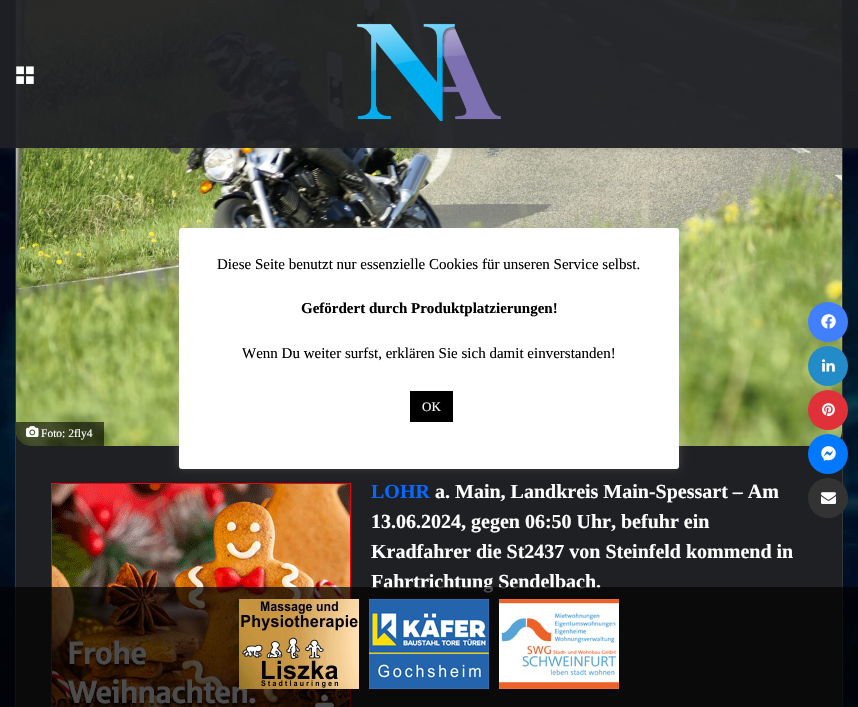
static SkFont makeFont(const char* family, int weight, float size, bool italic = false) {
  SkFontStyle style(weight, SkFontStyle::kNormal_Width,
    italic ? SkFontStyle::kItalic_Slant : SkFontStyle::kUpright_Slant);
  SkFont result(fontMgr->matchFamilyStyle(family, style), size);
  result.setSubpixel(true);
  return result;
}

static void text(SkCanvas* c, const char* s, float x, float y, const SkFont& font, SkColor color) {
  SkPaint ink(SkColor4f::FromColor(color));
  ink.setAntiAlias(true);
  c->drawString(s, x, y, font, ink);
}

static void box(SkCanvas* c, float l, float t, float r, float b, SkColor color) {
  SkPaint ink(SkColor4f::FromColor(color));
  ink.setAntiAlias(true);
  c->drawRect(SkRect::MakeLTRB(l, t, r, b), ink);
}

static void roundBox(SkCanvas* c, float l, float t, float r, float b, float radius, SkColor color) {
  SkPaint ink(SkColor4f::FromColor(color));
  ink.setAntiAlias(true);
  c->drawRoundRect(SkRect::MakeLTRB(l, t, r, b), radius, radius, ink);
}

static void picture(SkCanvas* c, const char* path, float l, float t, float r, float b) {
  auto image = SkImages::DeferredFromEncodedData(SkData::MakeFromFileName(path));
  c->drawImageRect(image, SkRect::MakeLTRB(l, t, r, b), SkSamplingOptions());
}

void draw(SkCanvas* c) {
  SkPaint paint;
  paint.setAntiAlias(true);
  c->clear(0xffffffff);
  picture(c, "img_01.png", 0, 0, 858, 707);
  box(c, 16, 431, 842, 707, 0xff1f2024);
  paint.setStyle(SkPaint::kStroke_Style);
  paint.setStrokeWidth(1);
  paint.setColor(0xff35363a);
  c->drawRect(SkRect::MakeLTRB(15.5f, -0.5f, 842.5f, 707.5f), paint);
  picture(c, "img_04.png", 16, 0, 842, 446);
  picture(c, "img_06.png", 51, 483, 351, 707);
  paint.setStyle(SkPaint::kFill_Style);
  paint.setColor(0x4dacabab);
  paint.setMaskFilter(SkMaskFilter::MakeBlur(kNormal_SkBlurStyle, 5));
  c->drawRoundRect(SkRect::MakeLTRB(179, 227, 679, 468), 3, 3, paint);
  paint.setMaskFilter(nullptr);
  roundBox(c, 179, 228, 679, 469, 3, 0xffffffff);
  SkFont face1 = makeFont("Liberation Serif", 400, 15);
  text(c, "Diese Seite benutzt nur essenzielle Cookies für unseren Service selbst.", 217, 269, face1, 0xff000000);
  SkFont face2 = makeFont("Liberation Serif", 700, 15);
  text(c, "Gefördert durch Produktplatzierungen!", 301, 313, face2, 0xff000000);
  text(c, "Wenn Du weiter surfst, erklären Sie sich damit einverstanden!", 242, 358, face1, 0xff000000);
  box(c, 410, 391, 453, 422, 0xff000000);
  SkFont face3 = makeFont("Liberation Serif", 400, 13);
  text(c, "OK", 422, 411, face3, 0xffffffff);
  c->save();
  c->clipRect(SkRect::MakeLTRB(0, 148, 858, 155));
  paint.setColor(0x33636363);
  paint.setMaskFilter(SkMaskFilter::MakeBlur(kNormal_SkBlurStyle, 4));
  c->drawRect(SkRect::MakeLTRB(0, 2, 858, 150), paint);
  paint.setMaskFilter(nullptr);
  c->restore();
  box(c, 0, 0, 858, 148, 0xf21f2024);
  picture(c, "img_02.png", 16, 66, 34, 84);
  picture(c, "img_03.png", 356, 23, 501, 122);
  paint.setColor(0x99000000);
  c->drawPath(SkPathBuilder().moveTo(16, 422).lineTo(104, 422).lineTo(104, 446).lineTo(31, 446).cubicTo(22.5f, 446, 16, 439.5f, 16, 431).close().detach(), paint);
  picture(c, "img_05.png", 26, 426, 39, 437);
  SkFont face4 = makeFont("Liberation Serif", 400, 11.5f);
  text(c, "Foto: 2fly4", 41, 437, face4, 0xffffffff);
  SkFont face5 = makeFont("Liberation Serif", 700, 20);
  text(c, "LOHR", 371, 498, face5, 0xff0669ff);
  text(c, "a. Main, Landkreis Main-Spessart – Am", 435, 498, face5, 0xffffffff);
  text(c, "13.06.2024, gegen 06:50 Uhr, befuhr ein", 371, 528, face5, 0xffffffff);
  text(c, "Kradfahrer die St2437 von Steinfeld kommend in", 371, 558, face5, 0xffffffff);
  text(c, "Fahrtrichtung Sendelbach.", 371, 588, face5, 0xffffffff);
  paint.setColor(0xff4080ff);
  c->drawCircle(828, 322, 20, paint);
  picture(c, "img_07.png", 821, 314, 836, 329);
  paint.setColor(0xff238cc8);
  c->drawCircle(828, 366, 20, paint);
  picture(c, "img_08.png", 822, 359, 835, 372);
  paint.setColor(0xffe13138);
  c->drawCircle(828, 410, 20, paint);
  picture(c, "img_09.png", 822, 403, 835, 416);
  paint.setColor(0xff0078ff);
  c->drawCircle(828, 454, 20, paint);
  picture(c, "img_10.png", 821, 446, 836, 461);
  paint.setColor(0xff333333);
  c->drawCircle(828, 498, 20, paint);
  picture(c, "img_11.png", 821, 492, 836, 504);
  box(c, 0, 587, 858, 707, 0xb3000000);
  picture(c, "img_12.png", 239, 599, 359, 689);
  picture(c, "img_13.png", 369, 599, 489, 689);
  picture(c, "img_14.png", 499, 599, 619, 689);
}
